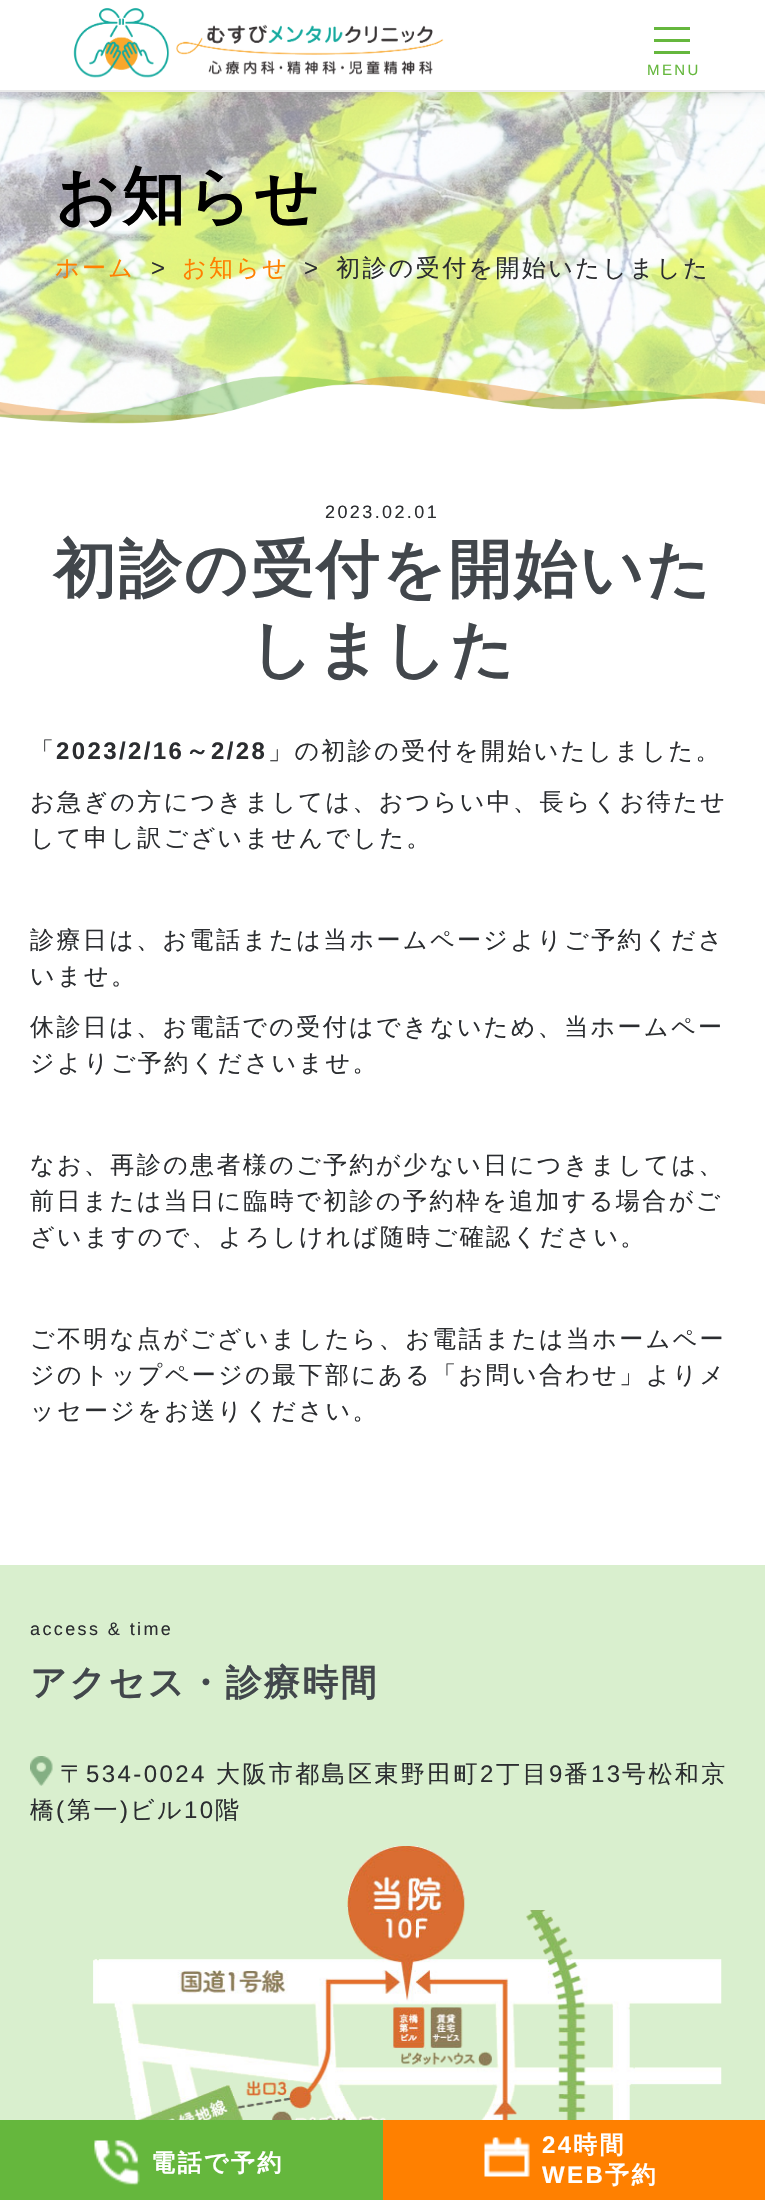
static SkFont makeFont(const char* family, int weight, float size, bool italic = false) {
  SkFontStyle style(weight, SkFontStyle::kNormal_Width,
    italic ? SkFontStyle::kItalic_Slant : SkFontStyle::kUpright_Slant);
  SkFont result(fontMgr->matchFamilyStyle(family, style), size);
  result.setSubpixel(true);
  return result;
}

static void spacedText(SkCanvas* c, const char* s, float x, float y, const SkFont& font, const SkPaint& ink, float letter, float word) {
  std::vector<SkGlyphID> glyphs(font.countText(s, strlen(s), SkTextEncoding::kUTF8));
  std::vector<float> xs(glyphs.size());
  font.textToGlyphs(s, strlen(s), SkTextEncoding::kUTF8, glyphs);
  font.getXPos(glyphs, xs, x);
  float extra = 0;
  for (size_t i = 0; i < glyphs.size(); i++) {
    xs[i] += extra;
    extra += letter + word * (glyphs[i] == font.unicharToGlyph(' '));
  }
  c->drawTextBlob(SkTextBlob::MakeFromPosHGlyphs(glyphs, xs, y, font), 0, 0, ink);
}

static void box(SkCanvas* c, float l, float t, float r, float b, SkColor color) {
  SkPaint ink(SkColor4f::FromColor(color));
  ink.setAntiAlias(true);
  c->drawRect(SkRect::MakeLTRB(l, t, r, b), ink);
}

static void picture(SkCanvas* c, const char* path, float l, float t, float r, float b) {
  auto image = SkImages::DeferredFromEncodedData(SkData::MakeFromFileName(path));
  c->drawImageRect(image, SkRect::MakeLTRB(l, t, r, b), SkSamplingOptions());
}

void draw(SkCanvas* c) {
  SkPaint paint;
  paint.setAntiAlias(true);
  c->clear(0xffffffff);
  picture(c, "img_02.png", 0, 92, 765, 424);
  paint.setColor(0x1a000000);
  paint.setMaskFilter(SkMaskFilter::MakeBlur(kNormal_SkBlurStyle, 7.5f));
  c->drawRect(SkRect::MakeLTRB(2, 0, 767, 92), paint);
  paint.setMaskFilter(nullptr);
  box(c, 0, 0, 765, 90, 0xffffffff);
  box(c, 0, 90, 765, 92, 0xffebebeb);
  picture(c, "img_01.png", 73, 7, 444, 78);
  box(c, 654, 39, 690, 42, 0xff65b73d);
  box(c, 654, 27, 690, 30, 0xff65b73d);
  box(c, 654, 51, 690, 54, 0xff65b73d);
  SkFont face1 = makeFont("Liberation Sans", 400, 15);
  paint.setColor(0xff65b73d);
  spacedText(c, "MENU", 647, 75, face1, paint, 2.4f, 0);
  SkFont face2 = makeFont("WenQuanYi Zen Hei", 700, 63);
  paint.setColor(0xff000000);
  spacedText(c, "お知らせ", 55, 218, face2, paint, 2.4f, 0);
  SkFont face3 = makeFont("WenQuanYi Zen Hei", 500, 24);
  paint.setColor(0xffff8000);
  spacedText(c, "ホーム", 55, 276, face3, paint, 2.4f, 0);
  SkFont face4 = makeFont("Liberation Sans", 400, 24);
  paint.setColor(0xff2b2d30);
  spacedText(c, ">", 151, 276, face4, paint, 2.4f, 0);
  paint.setColor(0xffff8000);
  spacedText(c, "お知らせ", 182, 276, face3, paint, 2.4f, 0);
  paint.setColor(0xff2b2d30);
  spacedText(c, ">", 304, 276, face4, paint, 2.4f, 0);
  spacedText(c, "初診の受付を開始いたしました", 336, 276, face3, paint, 2.4f, 0);
  picture(c, "img_03.png", 0, 376, 765, 522);
  SkFont face5 = makeFont("Liberation Sans", 400, 18);
  spacedText(c, "2023.02.01", 325, 518, face5, paint, 2.4f, 0);
  paint.setColor(0xff42474c);
  spacedText(c, "初診の受付を開始いた", 53, 591, face2, paint, 2.4f, 0);
  spacedText(c, "しました", 249, 671, face2, paint, 2.4f, 0);
  paint.setColor(0xff2b2d30);
  spacedText(c, "「", 30, 759, face3, paint, 2.4f, 0);
  SkFont face6 = makeFont("Liberation Sans", 700, 24);
  spacedText(c, "2023/2/16", 56, 759, face6, paint, 2.4f, 0);
  SkFont face7 = makeFont("WenQuanYi Zen Hei", 700, 24);
  spacedText(c, "～", 185, 759, face7, paint, 2.4f, 0);
  spacedText(c, "2/28", 211, 759, face6, paint, 2.4f, 0);
  spacedText(c, "」の初診の受付を開始いたしました。", 268, 759, face3, paint, 2.4f, 0);
  spacedText(c, "お急ぎの方につきましては、おつらい中、長らくお待たせ", 30, 810, face3, paint, 2.4f, 0);
  spacedText(c, "して申し訳ございませんでした。", 30, 846, face3, paint, 2.4f, 0);
  spacedText(c, "診療日は、お電話または当ホームページよりご予約くださ", 30, 948, face3, paint, 2.4f, 0);
  spacedText(c, "いませ。", 30, 984, face3, paint, 2.4f, 0);
  spacedText(c, "休診日は、お電話での受付はできないため、当ホームペー", 30, 1035, face3, paint, 2.4f, 0);
  spacedText(c, "ジよりご予約くださいませ。", 30, 1071, face3, paint, 2.4f, 0);
  spacedText(c, "なお、再診の患者様のご予約が少ない日につきましては、", 30, 1173, face3, paint, 2.4f, 0);
  spacedText(c, "前日または当日に臨時で初診の予約枠を追加する場合がご", 30, 1209, face3, paint, 2.4f, 0);
  spacedText(c, "ざいますので、よろしければ随時ご確認ください。", 30, 1245, face3, paint, 2.4f, 0);
  spacedText(c, "ご不明な点がございましたら、お電話または当ホームペー", 30, 1347, face3, paint, 2.4f, 0);
  spacedText(c, "ジのトップページの最下部にある「お問い合わせ」よりメ", 30, 1383, face3, paint, 2.4f, 0);
  spacedText(c, "ッセージをお送りください。", 30, 1419, face3, paint, 2.4f, 0);
  box(c, 0, 1565, 765, 2120, 0xffd9efce);
  spacedText(c, "access & time", 30, 1635, face5, paint, 2.4f, 0);
  SkFont face8 = makeFont("WenQuanYi Zen Hei", 700, 36);
  paint.setColor(0xff42474c);
  spacedText(c, "アクセス・診療時間", 30, 1695, face8, paint, 2.4f, 0);
  picture(c, "img_04.png", 30, 1756, 53, 1786);
  paint.setColor(0xff2b2d30);
  spacedText(c, "〒", 60, 1782, face3, paint, 2.4f, 0);
  spacedText(c, "534-0024", 86, 1782, face4, paint, 2.4f, 0);
  spacedText(c, "大阪市都島区東野田町", 216, 1782, face3, paint, 2.4f, 0);
  spacedText(c, "2", 480, 1782, face4, paint, 2.4f, 0);
  spacedText(c, "丁目", 496, 1782, face3, paint, 2.4f, 0);
  spacedText(c, "9", 549, 1782, face4, paint, 2.4f, 0);
  spacedText(c, "番", 564, 1782, face3, paint, 2.4f, 0);
  spacedText(c, "13", 591, 1782, face4, paint, 2.4f, 0);
  spacedText(c, "号松和京", 622, 1782, face3, paint, 2.4f, 0);
  spacedText(c, "橋", 30, 1818, face3, paint, 2.4f, 0);
  spacedText(c, "(", 56, 1818, face4, paint, 2.4f, 0);
  spacedText(c, "第一", 67, 1818, face3, paint, 2.4f, 0);
  spacedText(c, ")", 120, 1818, face4, paint, 2.4f, 0);
  spacedText(c, "ビル", 130, 1818, face3, paint, 2.4f, 0);
  spacedText(c, "10", 184, 1818, face4, paint, 2.4f, 0);
  spacedText(c, "階", 215, 1818, face3, paint, 2.4f, 0);
  picture(c, "img_05.png", 35, 1846, 722, 2120);
  box(c, 0, 2120, 383, 2200, 0xff65b73d);
  picture(c, "img_06.png", 94, 2140, 140, 2186);
  paint.setColor(0xffffffff);
  spacedText(c, "電話で予約", 151, 2171, face7, paint, 2.4f, 0);
  box(c, 383, 2120, 765, 2200, 0xffff8000);
  picture(c, "img_07.png", 484, 2137, 530, 2177);
  spacedText(c, "24", 542, 2153, face6, paint, 2.4f, 0);
  spacedText(c, "時間", 573, 2153, face7, paint, 2.4f, 0);
  spacedText(c, "WEB", 542, 2183, face6, paint, 2.4f, 0);
  spacedText(c, "予約", 605, 2183, face7, paint, 2.4f, 0);
}
